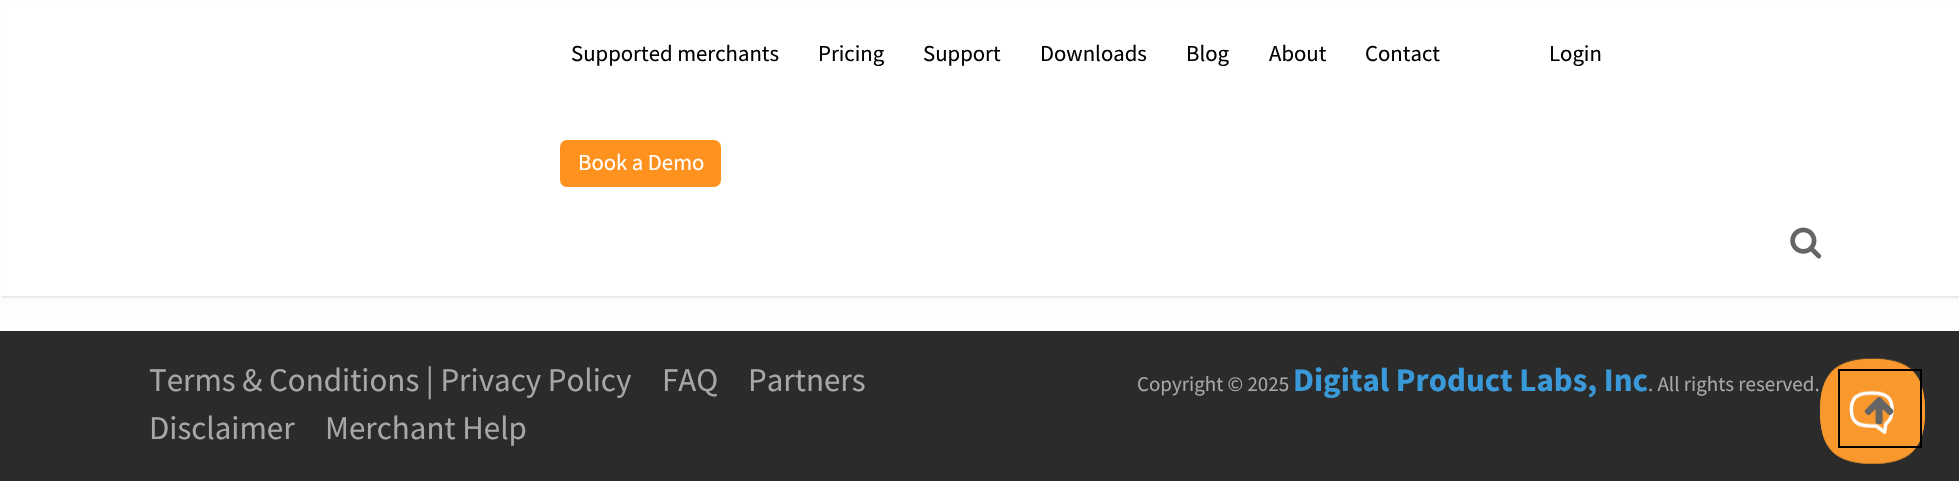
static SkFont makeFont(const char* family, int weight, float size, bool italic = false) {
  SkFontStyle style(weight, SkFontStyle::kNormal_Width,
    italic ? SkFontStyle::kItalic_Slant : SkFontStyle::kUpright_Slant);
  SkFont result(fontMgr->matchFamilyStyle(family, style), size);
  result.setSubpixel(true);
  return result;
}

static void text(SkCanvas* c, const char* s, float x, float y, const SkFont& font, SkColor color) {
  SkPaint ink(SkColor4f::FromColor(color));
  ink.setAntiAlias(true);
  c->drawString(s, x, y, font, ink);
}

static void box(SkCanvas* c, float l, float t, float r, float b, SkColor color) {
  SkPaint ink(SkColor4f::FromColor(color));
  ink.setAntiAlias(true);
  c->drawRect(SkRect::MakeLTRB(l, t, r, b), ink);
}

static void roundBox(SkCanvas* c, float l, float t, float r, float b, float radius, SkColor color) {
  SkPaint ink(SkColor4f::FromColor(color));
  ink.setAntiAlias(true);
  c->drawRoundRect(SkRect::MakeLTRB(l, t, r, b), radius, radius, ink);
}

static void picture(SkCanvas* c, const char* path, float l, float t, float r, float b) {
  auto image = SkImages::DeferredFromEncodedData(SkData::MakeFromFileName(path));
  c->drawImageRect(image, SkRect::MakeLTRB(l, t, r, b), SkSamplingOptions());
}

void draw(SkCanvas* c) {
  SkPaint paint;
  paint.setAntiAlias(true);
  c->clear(0xfffdfdfd);
  picture(c, "img_02.png", 1810, 297, 1813, 298);
  paint.setColor(0xffeaeaea);
  paint.setMaskFilter(SkMaskFilter::MakeBlur(kNormal_SkBlurStyle, 0.5f));
  c->drawRect(SkRect::MakeLTRB(2, 2, 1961, 298), paint);
  paint.setMaskFilter(nullptr);
  box(c, 1, 1, 1959, 296, 0xffffffff);
  SkFont face1 = makeFont("Source Sans Pro", 400, 22.75f);
  text(c, "Supported merchants", 571, 61, face1, 0xff000000);
  text(c, "Pricing", 818, 61, face1, 0xff000000);
  text(c, "Support", 923, 61, face1, 0xff000000);
  text(c, "Downloads", 1040, 61, face1, 0xff000000);
  text(c, "Blog", 1186, 61, face1, 0xff000000);
  text(c, "About", 1269, 61, face1, 0xff000000);
  text(c, "Contact", 1365, 61, face1, 0xff000000);
  text(c, "Login", 1549, 61, face1, 0xff000000);
  roundBox(c, 560, 140, 721, 187, 7, 0xffff921e);
  text(c, "Book a Demo", 578, 170, face1, 0xffffffff);
  picture(c, "img_01.png", 1790, 227, 1822, 259);
  box(c, 0, 331, 1959, 481, 0xff2b2b2b);
  SkFont face2 = makeFont("Source Sans Pro", 400, 33);
  text(c, "Terms & Conditions | Privacy Policy", 149, 391, face2, 0xffa7a7a7);
  text(c, "FAQ", 662, 391, face2, 0xffa7a7a7);
  text(c, "Partners", 748, 391, face2, 0xffa7a7a7);
  text(c, "Disclaimer", 149, 439, face2, 0xffa7a7a7);
  text(c, "Merchant Help", 325, 439, face2, 0xffa7a7a7);
  SkFont face3 = makeFont("Source Sans Pro", 400, 21);
  text(c, "Copyright © 2025", 1137, 391, face3, 0xffa7a7a7);
  SkFont face4 = makeFont("Source Sans Pro", 700, 33);
  text(c, "Digital Product Labs, Inc", 1293, 391, face4, 0xff3a9ad9);
  text(c, ". All rights reserved.", 1648, 391, face3, 0xffa7a7a7);
  picture(c, "img_03.png", 1820, 358, 1925, 464);
  paint.setStyle(SkPaint::kStroke_Style);
  paint.setStrokeWidth(2);
  paint.setColor(0xff000000);
  c->drawRect(SkRect::MakeLTRB(1839, 370, 1921, 447), paint);
  picture(c, "img_04.png", 1864, 397, 1894, 425);
}
